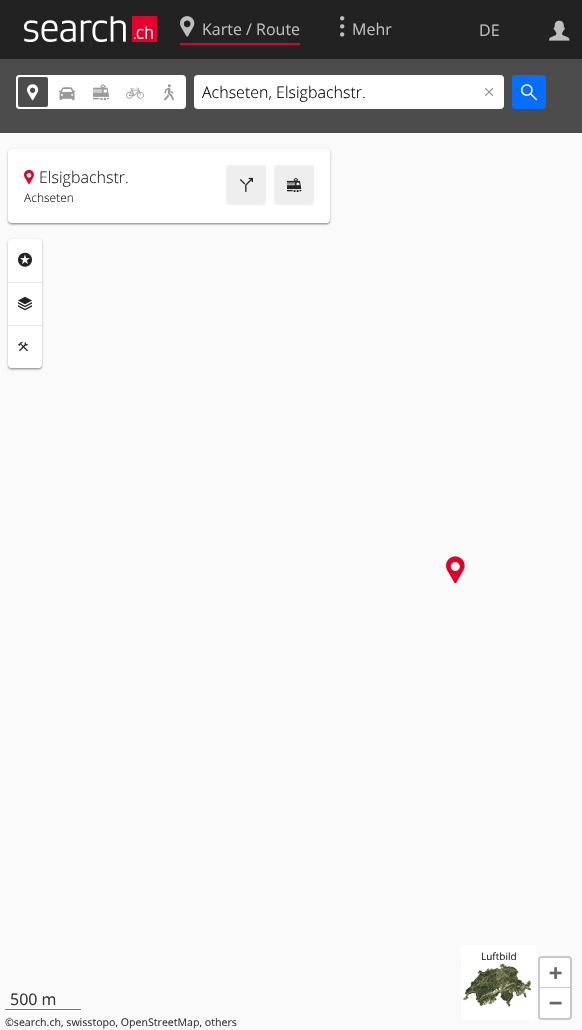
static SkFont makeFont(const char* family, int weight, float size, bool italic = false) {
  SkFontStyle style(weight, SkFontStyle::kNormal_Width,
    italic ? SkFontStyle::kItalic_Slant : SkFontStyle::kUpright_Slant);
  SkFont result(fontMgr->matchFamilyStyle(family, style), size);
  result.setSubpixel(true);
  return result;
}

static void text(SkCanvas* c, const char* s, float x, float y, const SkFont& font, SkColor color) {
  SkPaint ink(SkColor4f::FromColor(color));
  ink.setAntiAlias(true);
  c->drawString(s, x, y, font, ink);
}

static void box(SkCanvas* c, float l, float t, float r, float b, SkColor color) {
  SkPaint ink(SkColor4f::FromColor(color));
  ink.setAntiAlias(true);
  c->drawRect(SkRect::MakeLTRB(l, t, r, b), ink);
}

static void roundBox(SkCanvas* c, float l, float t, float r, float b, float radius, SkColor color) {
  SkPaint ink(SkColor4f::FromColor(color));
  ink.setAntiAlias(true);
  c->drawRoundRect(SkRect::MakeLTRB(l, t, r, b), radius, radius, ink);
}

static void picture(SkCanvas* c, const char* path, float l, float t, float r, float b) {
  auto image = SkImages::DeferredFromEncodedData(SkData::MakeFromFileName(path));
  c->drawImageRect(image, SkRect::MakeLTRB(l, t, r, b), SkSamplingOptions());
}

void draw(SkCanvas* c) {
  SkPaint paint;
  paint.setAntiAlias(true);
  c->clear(0xfffafafa);
  box(c, 0, 0, 582, 59, 0xff222222);
  picture(c, "img_01.png", 24, 16, 157, 42);
  box(c, 180, 43, 300, 45, 0xffe4002c);
  picture(c, "img_02.png", 180, 16, 195, 37);
  SkFont face1 = makeFont("Open Sans", 400, 16);
  text(c, "Karte / Route", 202, 35, face1, 0xffbfbfbf);
  picture(c, "img_03.png", 340, 16, 345, 37);
  text(c, "Mehr", 352, 35, face1, 0xffbfbfbf);
  text(c, "DE", 479, 36, face1, 0xffbfbfbf);
  picture(c, "img_04.png", 549, 20, 570, 41);
  box(c, 0, 59, 582, 133, 0xff4c4c4c);
  roundBox(c, 16, 75, 186, 109, 4, 0xffffffff);
  paint.setColor(0xff4c4c4c);
  c->drawRoundRect(SkRect::MakeLTRB(17, 76, 49, 108), 3, 3, paint);
  paint.setStyle(SkPaint::kStroke_Style);
  paint.setStrokeWidth(2);
  paint.setColor(0xffffffff);
  c->drawRoundRect(SkRect::MakeLTRB(17, 76, 49, 108), 3, 3, paint);
  picture(c, "img_05.png", 27, 84, 39, 101);
  picture(c, "img_06.png", 59, 87, 75, 101);
  picture(c, "img_07.png", 93, 84, 110, 101);
  picture(c, "img_08.png", 126, 87, 144, 99);
  picture(c, "img_09.png", 164, 84, 174, 101);
  roundBox(c, 194, 75, 504, 109, 4, 0xffffffff);
  SkFont face2 = makeFont("Open Sans", 300, 16);
  text(c, "Achseten, Elsigbachstr.", 202, 98, face2, 0xff000000);
  picture(c, "img_10.png", 485, 88, 494, 96);
  roundBox(c, 512, 75, 546, 109, 4, 0xff056dff);
  picture(c, "img_11.png", 521, 84, 537, 101);
  c->save();
  c->clipPath(SkPathBuilder(SkPathFillType::kEvenOdd).moveTo(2, 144).lineTo(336, 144).lineTo(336, 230).lineTo(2, 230).close().moveTo(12, 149).lineTo(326, 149).cubicTo(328, 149, 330, 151, 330, 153).lineTo(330, 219).cubicTo(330, 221, 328, 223, 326, 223).lineTo(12, 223).cubicTo(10, 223, 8, 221, 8, 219).lineTo(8, 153).cubicTo(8, 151, 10, 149, 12, 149).close().detach(), true);
  paint.setStyle(SkPaint::kFill_Style);
  paint.setColor(0x33000000);
  paint.setMaskFilter(SkMaskFilter::MakeBlur(kNormal_SkBlurStyle, 1.5f));
  c->drawRoundRect(SkRect::MakeLTRB(8, 150, 330, 224), 4, 4, paint);
  paint.setMaskFilter(nullptr);
  c->restore();
  paint.setColor(0x1f000000);
  paint.setMaskFilter(SkMaskFilter::MakeBlur(kNormal_SkBlurStyle, 0.5f));
  c->drawRoundRect(SkRect::MakeLTRB(8, 151, 330, 225), 4, 4, paint);
  paint.setMaskFilter(nullptr);
  paint.setColor(0x24000000);
  paint.setMaskFilter(SkMaskFilter::MakeBlur(kNormal_SkBlurStyle, 0.5f));
  c->drawRoundRect(SkRect::MakeLTRB(8, 150, 330, 224), 4, 4, paint);
  paint.setMaskFilter(nullptr);
  roundBox(c, 8, 149, 330, 223, 4, 0xffffffff);
  picture(c, "img_12.png", 24, 169, 34, 185);
  text(c, "Elsigbachstr.", 39, 183, face2, 0xff222222);
  roundBox(c, 226, 165, 266, 205, 4, 0xffeeeeee);
  picture(c, "img_13.png", 240, 177, 253, 193);
  roundBox(c, 274, 165, 314, 205, 4, 0xffeeeeee);
  picture(c, "img_14.png", 287, 177, 302, 193);
  SkFont face3 = makeFont("Open Sans", 300, 12);
  text(c, "Achseten", 24, 202, face3, 0xff111111);
  c->save();
  c->clipPath(SkPathBuilder(SkPathFillType::kEvenOdd).moveTo(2, 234).lineTo(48, 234).lineTo(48, 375).lineTo(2, 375).close().moveTo(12, 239).lineTo(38, 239).cubicTo(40, 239, 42, 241, 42, 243).lineTo(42, 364).cubicTo(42, 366, 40, 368, 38, 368).lineTo(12, 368).cubicTo(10, 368, 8, 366, 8, 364).lineTo(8, 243).cubicTo(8, 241, 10, 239, 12, 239).close().detach(), true);
  paint.setColor(0x33000000);
  paint.setMaskFilter(SkMaskFilter::MakeBlur(kNormal_SkBlurStyle, 1.5f));
  c->drawRoundRect(SkRect::MakeLTRB(8, 240, 42, 369), 4, 4, paint);
  paint.setMaskFilter(nullptr);
  c->restore();
  paint.setColor(0x1f000000);
  paint.setMaskFilter(SkMaskFilter::MakeBlur(kNormal_SkBlurStyle, 0.5f));
  c->drawRoundRect(SkRect::MakeLTRB(8, 241, 42, 370), 4, 4, paint);
  paint.setMaskFilter(nullptr);
  paint.setColor(0x24000000);
  paint.setMaskFilter(SkMaskFilter::MakeBlur(kNormal_SkBlurStyle, 0.5f));
  c->drawRoundRect(SkRect::MakeLTRB(8, 240, 42, 369), 4, 4, paint);
  paint.setMaskFilter(nullptr);
  roundBox(c, 8, 239, 42, 368, 4, 0xffffffff);
  box(c, 8, 282, 42, 283, 0xffe6e6e6);
  picture(c, "img_15.png", 18, 252, 32, 267);
  box(c, 8, 325, 42, 326, 0xffe6e6e6);
  picture(c, "img_16.png", 18, 296, 32, 311);
  c->save();
  c->clipPath(SkPathBuilder().moveTo(11, 239).lineTo(39, 239).cubicTo(40.5f, 239, 42, 240.5f, 42, 242).lineTo(42, 365).cubicTo(42, 366.5f, 40.5f, 368, 39, 368).lineTo(11, 368).cubicTo(9.5f, 368, 8, 366.5f, 8, 365).lineTo(8, 242).cubicTo(8, 240.5f, 9.5f, 239, 11, 239).close().detach(), true);
  paint.setColor(0xffffffff);
  c->drawPath(SkPathBuilder().moveTo(8, 326).lineTo(42, 326).lineTo(42, 364).cubicTo(42, 366, 40, 368, 38, 368).lineTo(12, 368).cubicTo(10, 368, 8, 366, 8, 364).close().detach(), paint);
  c->restore();
  picture(c, "img_17.png", 18, 341, 28, 352);
  roundBox(c, 461, 945, 536, 1020, 3, 0xffffffff);
  picture(c, "img_18.png", 463, 963, 534, 1009);
  SkFont face4 = makeFont("Open Sans", 400, 10);
  text(c, "Luftbild", 481, 960, face4, 0xff222222);
  picture(c, "img_19.png", 446, 556, 465, 584);
  paint.setStyle(SkPaint::kStroke_Style);
  paint.setColor(0xffc8c8c8);
  c->drawRoundRect(SkRect::MakeLTRB(539, 957, 571, 1019), 3, 3, paint);
  paint.setStyle(SkPaint::kFill_Style);
  paint.setColor(0xffffffff);
  c->drawPath(SkPathBuilder().moveTo(542, 958).lineTo(568, 958).cubicTo(569, 958, 570, 959, 570, 960).lineTo(570, 988).lineTo(540, 988).lineTo(540, 960).cubicTo(540, 959, 541, 958, 542, 958).close().detach(), paint);
  box(c, 540, 987, 570, 988, 0xffcccccc);
  SkFont face5 = makeFont("DejaVu Sans Mono", 700, 22);
  text(c, "+", 549, 980, face5, 0xff666666);
  c->drawPath(SkPathBuilder().moveTo(540, 988).lineTo(570, 988).lineTo(570, 1016).cubicTo(570, 1017, 569, 1018, 568, 1018).lineTo(542, 1018).cubicTo(541, 1018, 540, 1017, 540, 1016).close().detach(), paint);
  text(c, "−", 549, 1010, face5, 0xff666666);
  box(c, 5, 1010, 81, 1011, 0xfffdfdfd);
  box(c, 5, 1008, 81, 1009, 0xfffdfdfd);
  box(c, 5, 1009, 81, 1010, 0xff777777);
  text(c, "500 m", 10, 1005, face1, 0xff333333);
  SkFont face6 = makeFont("Open Sans", 400, 10.6f);
  text(c, "©search.ch, swisstopo, OpenStreetMap, others", 5, 1026, face6, 0xff333333);
}
